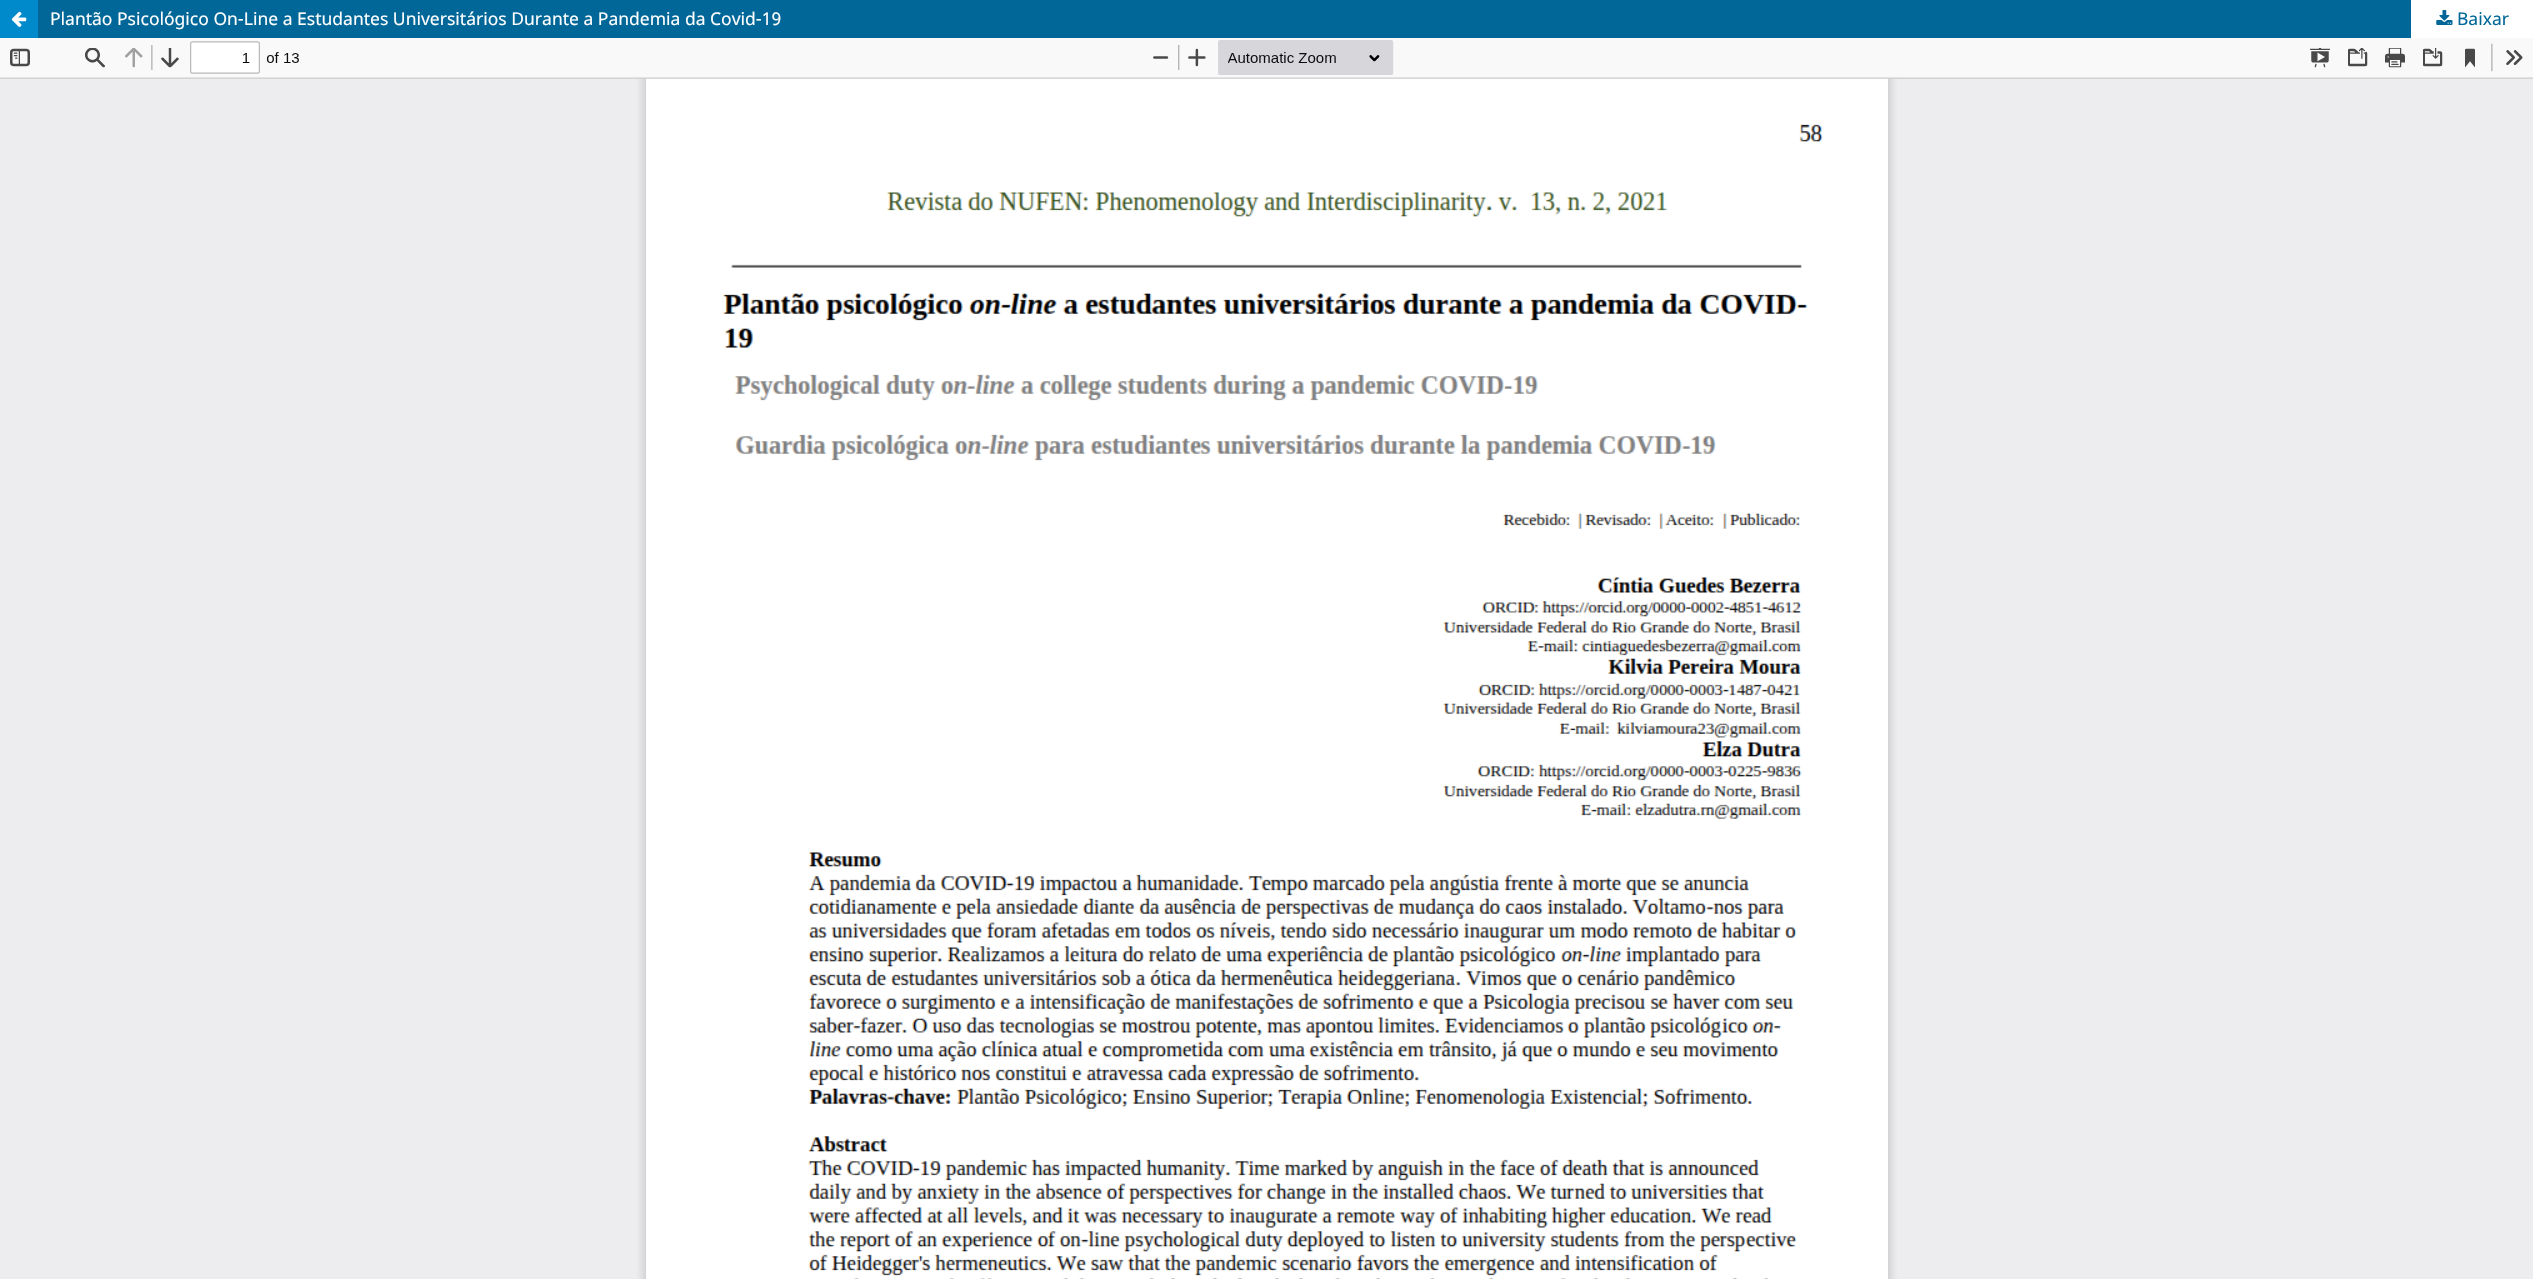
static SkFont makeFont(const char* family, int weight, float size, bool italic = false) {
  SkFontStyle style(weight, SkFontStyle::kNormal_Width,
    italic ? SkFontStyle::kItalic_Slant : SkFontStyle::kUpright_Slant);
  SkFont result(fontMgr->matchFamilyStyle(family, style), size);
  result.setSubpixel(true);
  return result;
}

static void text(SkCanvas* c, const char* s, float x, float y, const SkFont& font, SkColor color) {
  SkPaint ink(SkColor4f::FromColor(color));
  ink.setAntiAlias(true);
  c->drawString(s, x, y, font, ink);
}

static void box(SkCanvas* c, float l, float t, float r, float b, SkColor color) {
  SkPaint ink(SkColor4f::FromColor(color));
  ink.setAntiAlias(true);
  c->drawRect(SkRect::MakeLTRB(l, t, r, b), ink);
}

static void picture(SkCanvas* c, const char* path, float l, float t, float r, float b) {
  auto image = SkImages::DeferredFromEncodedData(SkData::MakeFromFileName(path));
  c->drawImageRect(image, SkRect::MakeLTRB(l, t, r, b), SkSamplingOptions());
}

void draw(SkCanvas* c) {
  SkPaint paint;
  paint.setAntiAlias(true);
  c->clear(0xffffffff);
  box(c, 38, 0, 2411, 38, 0xff006798);
  box(c, 0, 0, 38, 38, 0xff008acb);
  picture(c, "img_01.png", 11, 11, 27, 27);
  SkFont face1 = makeFont("Noto Sans", 400, 17.5f);
  text(c, "Plantão Psicológico On-Line a Estudantes Universitários Durante a Pandemia da Covid-19", 50, 25, face1, 0xffffffff);
  picture(c, "img_02.png", 2436, 10, 2453, 25);
  text(c, "Baixar", 2457, 25, face1, 0xff006798);
  picture(c, "img_03.png", 0, 38, 2533, 1279);
}
